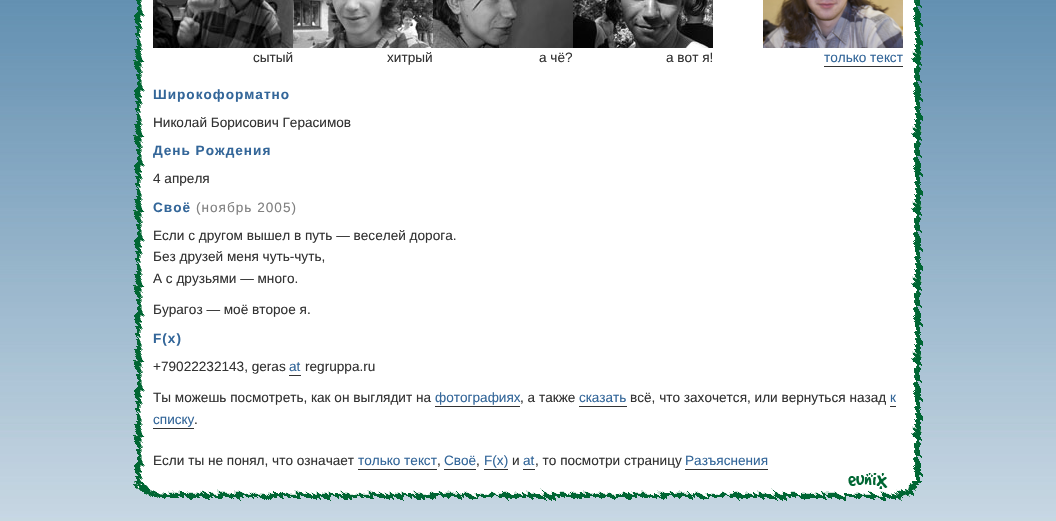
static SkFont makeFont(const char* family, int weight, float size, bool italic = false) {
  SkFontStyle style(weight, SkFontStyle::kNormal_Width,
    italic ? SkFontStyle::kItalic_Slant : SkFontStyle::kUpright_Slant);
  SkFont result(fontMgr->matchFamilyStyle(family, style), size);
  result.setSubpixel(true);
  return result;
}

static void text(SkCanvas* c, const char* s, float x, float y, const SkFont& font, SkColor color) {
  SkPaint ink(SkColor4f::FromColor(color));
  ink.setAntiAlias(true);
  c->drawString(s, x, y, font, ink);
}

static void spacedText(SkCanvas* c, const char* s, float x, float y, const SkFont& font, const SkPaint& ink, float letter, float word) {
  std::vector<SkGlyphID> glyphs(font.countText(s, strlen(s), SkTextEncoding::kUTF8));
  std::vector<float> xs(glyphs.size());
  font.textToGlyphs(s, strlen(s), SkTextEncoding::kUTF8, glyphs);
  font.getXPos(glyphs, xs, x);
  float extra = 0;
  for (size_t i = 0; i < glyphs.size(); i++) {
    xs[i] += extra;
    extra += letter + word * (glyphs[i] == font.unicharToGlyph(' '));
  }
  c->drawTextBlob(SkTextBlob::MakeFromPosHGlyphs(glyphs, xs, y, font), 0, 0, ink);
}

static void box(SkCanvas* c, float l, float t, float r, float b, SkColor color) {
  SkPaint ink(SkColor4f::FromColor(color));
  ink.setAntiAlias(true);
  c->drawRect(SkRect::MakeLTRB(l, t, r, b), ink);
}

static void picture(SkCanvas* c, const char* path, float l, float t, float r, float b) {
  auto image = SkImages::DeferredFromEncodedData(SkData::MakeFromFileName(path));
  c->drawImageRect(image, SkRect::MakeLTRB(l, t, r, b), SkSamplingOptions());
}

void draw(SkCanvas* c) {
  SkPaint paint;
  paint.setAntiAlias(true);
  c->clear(0xffffffff);
  picture(c, "img_01.png", 0, 0, 1056, 521);
  picture(c, "img_02.png", 133, 0, 923, 481);
  picture(c, "img_03.png", 153, 0, 293, 48);
  SkFont face1 = makeFont("Liberation Sans", 400, 13.6f);
  text(c, "сытый", 253, 62, face1, 0xff333333);
  picture(c, "img_04.png", 293, 0, 433, 48);
  text(c, "хитрый", 387, 62, face1, 0xff333333);
  picture(c, "img_05.png", 433, 0, 573, 48);
  text(c, "а чё?", 539, 62, face1, 0xff333333);
  picture(c, "img_06.png", 573, 0, 713, 48);
  text(c, "а вот я!", 666, 62, face1, 0xff333333);
  picture(c, "img_07.png", 763, 0, 903, 48);
  text(c, "только текст", 824, 62, face1, 0xff336699);
  box(c, 824, 66, 903, 67, 0xff333333);
  SkFont face2 = makeFont("Liberation Sans", 700, 13.6f);
  paint.setColor(0xff336699);
  spacedText(c, "Широкоформатно", 153, 99, face2, paint, 1, 0);
  text(c, "Николай Борисович Герасимов", 153, 127, face1, 0xff333333);
  spacedText(c, "День Рождения", 153, 155, face2, paint, 1, 0);
  text(c, "4 апреля", 153, 183, face1, 0xff333333);
  spacedText(c, "Своё", 153, 212, face2, paint, 1, 0);
  paint.setColor(0xff808080);
  spacedText(c, "(ноябрь 2005)", 196, 212, face1, paint, 1, 0);
  text(c, "Если с другом вышел в путь — веселей дорога.", 153, 240, face1, 0xff333333);
  text(c, "Без друзей меня чуть-чуть,", 153, 261, face1, 0xff333333);
  text(c, "А с друзьями — много.", 153, 283, face1, 0xff333333);
  text(c, "Бурагоз — моё второе я.", 153, 314, face1, 0xff333333);
  paint.setColor(0xff336699);
  spacedText(c, "F(x)", 153, 343, face2, paint, 1, 0);
  text(c, "+79022232143, geras", 153, 371, face1, 0xff333333);
  text(c, "at", 289, 371, face1, 0xff336699);
  box(c, 289, 375, 301, 376, 0xff333333);
  text(c, "regruppa.ru", 305, 371, face1, 0xff333333);
  text(c, "Ты можешь посмотреть, как он выглядит на", 153, 402, face1, 0xff333333);
  text(c, "фотографиях", 435, 402, face1, 0xff336699);
  box(c, 435, 406, 520, 407, 0xff333333);
  text(c, ", а также", 520, 402, face1, 0xff333333);
  text(c, "сказать", 579, 402, face1, 0xff336699);
  box(c, 579, 406, 627, 407, 0xff333333);
  text(c, "всё, что захочется, или вернуться назад", 630, 402, face1, 0xff333333);
  text(c, "к", 890, 402, face1, 0xff336699);
  box(c, 890, 406, 896, 407, 0xff333333);
  text(c, "списку", 153, 424, face1, 0xff336699);
  box(c, 153, 428, 194, 429, 0xff333333);
  text(c, ".", 194, 424, face1, 0xff333333);
  text(c, "Если ты не понял, что означает", 153, 465, face1, 0xff333333);
  text(c, "только текст", 358, 465, face1, 0xff336699);
  box(c, 358, 469, 437, 470, 0xff333333);
  text(c, ",", 437, 465, face1, 0xff333333);
  text(c, "Своё", 444, 465, face1, 0xff336699);
  box(c, 444, 469, 476, 470, 0xff333333);
  text(c, ",", 476, 465, face1, 0xff333333);
  text(c, "F(x)", 484, 465, face1, 0xff336699);
  box(c, 484, 469, 508, 470, 0xff333333);
  text(c, "и", 512, 465, face1, 0xff333333);
  text(c, "at", 523, 465, face1, 0xff336699);
  box(c, 523, 469, 535, 470, 0xff333333);
  text(c, ", то посмотри страницу", 535, 465, face1, 0xff333333);
  text(c, "Разъяснения", 685, 465, face1, 0xff336699);
  box(c, 685, 469, 768, 470, 0xff333333);
  picture(c, "img_09.png", 133, 481, 922, 501);
  picture(c, "img_08.png", 848, 473, 888, 489);
}
